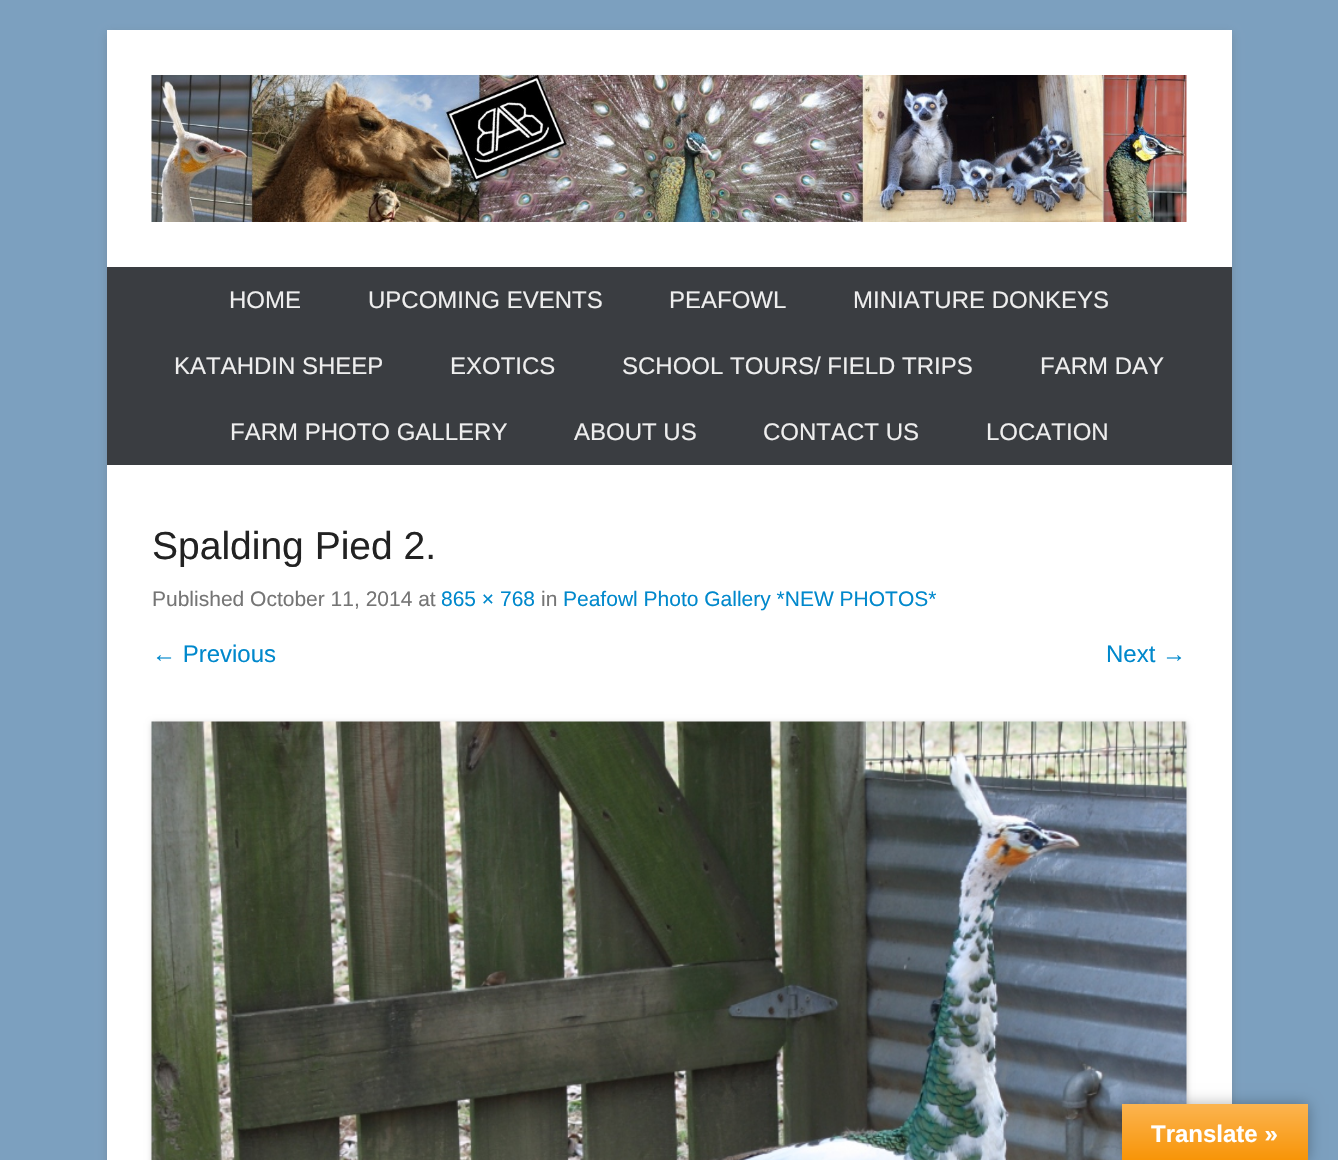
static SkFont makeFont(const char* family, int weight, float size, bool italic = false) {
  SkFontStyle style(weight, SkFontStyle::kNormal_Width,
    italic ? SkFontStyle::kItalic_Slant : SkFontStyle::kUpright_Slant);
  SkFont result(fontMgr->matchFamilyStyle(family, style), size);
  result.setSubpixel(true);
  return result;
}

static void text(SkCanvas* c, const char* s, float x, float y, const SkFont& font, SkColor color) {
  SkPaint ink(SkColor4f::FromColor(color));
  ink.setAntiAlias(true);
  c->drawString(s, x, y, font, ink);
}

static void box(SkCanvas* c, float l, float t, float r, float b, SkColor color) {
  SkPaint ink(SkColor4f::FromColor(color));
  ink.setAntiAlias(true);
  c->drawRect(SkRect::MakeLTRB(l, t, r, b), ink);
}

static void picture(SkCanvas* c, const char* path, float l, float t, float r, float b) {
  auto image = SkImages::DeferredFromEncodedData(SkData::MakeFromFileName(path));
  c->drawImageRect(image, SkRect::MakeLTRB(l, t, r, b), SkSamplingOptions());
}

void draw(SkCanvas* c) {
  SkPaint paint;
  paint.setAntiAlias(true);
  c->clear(0xff7ca0bf);
  paint.setColor(0x4d646464);
  paint.setMaskFilter(SkMaskFilter::MakeBlur(kNormal_SkBlurStyle, 4.5f));
  c->drawRect(SkRect::MakeLTRB(107, 33, 1232, 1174), paint);
  paint.setMaskFilter(nullptr);
  box(c, 107, 30, 1232, 1160, 0xffffffff);
  picture(c, "img_01.png", 151, 75, 1187, 222);
  box(c, 107, 267, 1232, 465, 0xff3a3d41);
  SkFont face1 = makeFont("Liberation Sans", 400, 24);
  text(c, "HOME", 229, 308, face1, 0xffeeeeee);
  text(c, "UPCOMING EVENTS", 368, 308, face1, 0xffeeeeee);
  text(c, "PEAFOWL", 669, 308, face1, 0xffeeeeee);
  text(c, "MINIATURE DONKEYS", 853, 308, face1, 0xffeeeeee);
  text(c, "KATAHDIN SHEEP", 174, 374, face1, 0xffeeeeee);
  text(c, "EXOTICS", 450, 374, face1, 0xffeeeeee);
  text(c, "SCHOOL TOURS/ FIELD TRIPS", 622, 374, face1, 0xffeeeeee);
  text(c, "FARM DAY", 1040, 374, face1, 0xffeeeeee);
  text(c, "FARM PHOTO GALLERY", 230, 440, face1, 0xffeeeeee);
  text(c, "ABOUT US", 574, 440, face1, 0xffeeeeee);
  text(c, "CONTACT US", 763, 440, face1, 0xffeeeeee);
  text(c, "LOCATION", 986, 440, face1, 0xffeeeeee);
  SkFont face2 = makeFont("Liberation Sans", 400, 39);
  text(c, "Spalding Pied 2.", 152, 559, face2, 0xff222222);
  SkFont face3 = makeFont("Liberation Sans", 400, 21);
  text(c, "Published October 11, 2014 at", 152, 606, face3, 0xff757575);
  text(c, "865 × 768", 441, 606, face3, 0xff0088cc);
  text(c, "in", 541, 606, face3, 0xff757575);
  text(c, "Peafowl Photo Gallery *NEW PHOTOS*", 563, 606, face3, 0xff0088cc);
  text(c, "← Previous", 152, 662, face1, 0xff0088cc);
  text(c, "Next →", 1106, 662, face1, 0xff0088cc);
  paint.setColor(0x33000000);
  paint.setMaskFilter(SkMaskFilter::MakeBlur(kNormal_SkBlurStyle, 3));
  c->drawRect(SkRect::MakeLTRB(152, 723, 1187, 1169), paint);
  paint.setMaskFilter(nullptr);
  picture(c, "img_02.png", 151, 721, 1187, 1160);
  paint.setColor(0x4d000000);
  paint.setMaskFilter(SkMaskFilter::MakeBlur(kNormal_SkBlurStyle, 7));
  c->drawRect(SkRect::MakeLTRB(1122, 1104, 1308, 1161), paint);
  paint.setMaskFilter(nullptr);
  {
    const SkColor colors[] = {0xfffbb450, 0xfff89406};
    const float stops[] = {0, 1};
    const SkPoint ends[] = {{1215, 1104}, {1215, 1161}};
    paint.setShader(SkGradientShader::MakeLinear(ends, colors, stops, 2, SkTileMode::kClamp));
    paint.setAlpha(255);
  }
  c->drawRect(SkRect::MakeLTRB(1122, 1104, 1308, 1160), paint);
  SkFont face4 = makeFont("Liberation Sans", 700, 24);
  text(c, "Translate »", 1151, 1142, face4, 0xffffffff);
}
